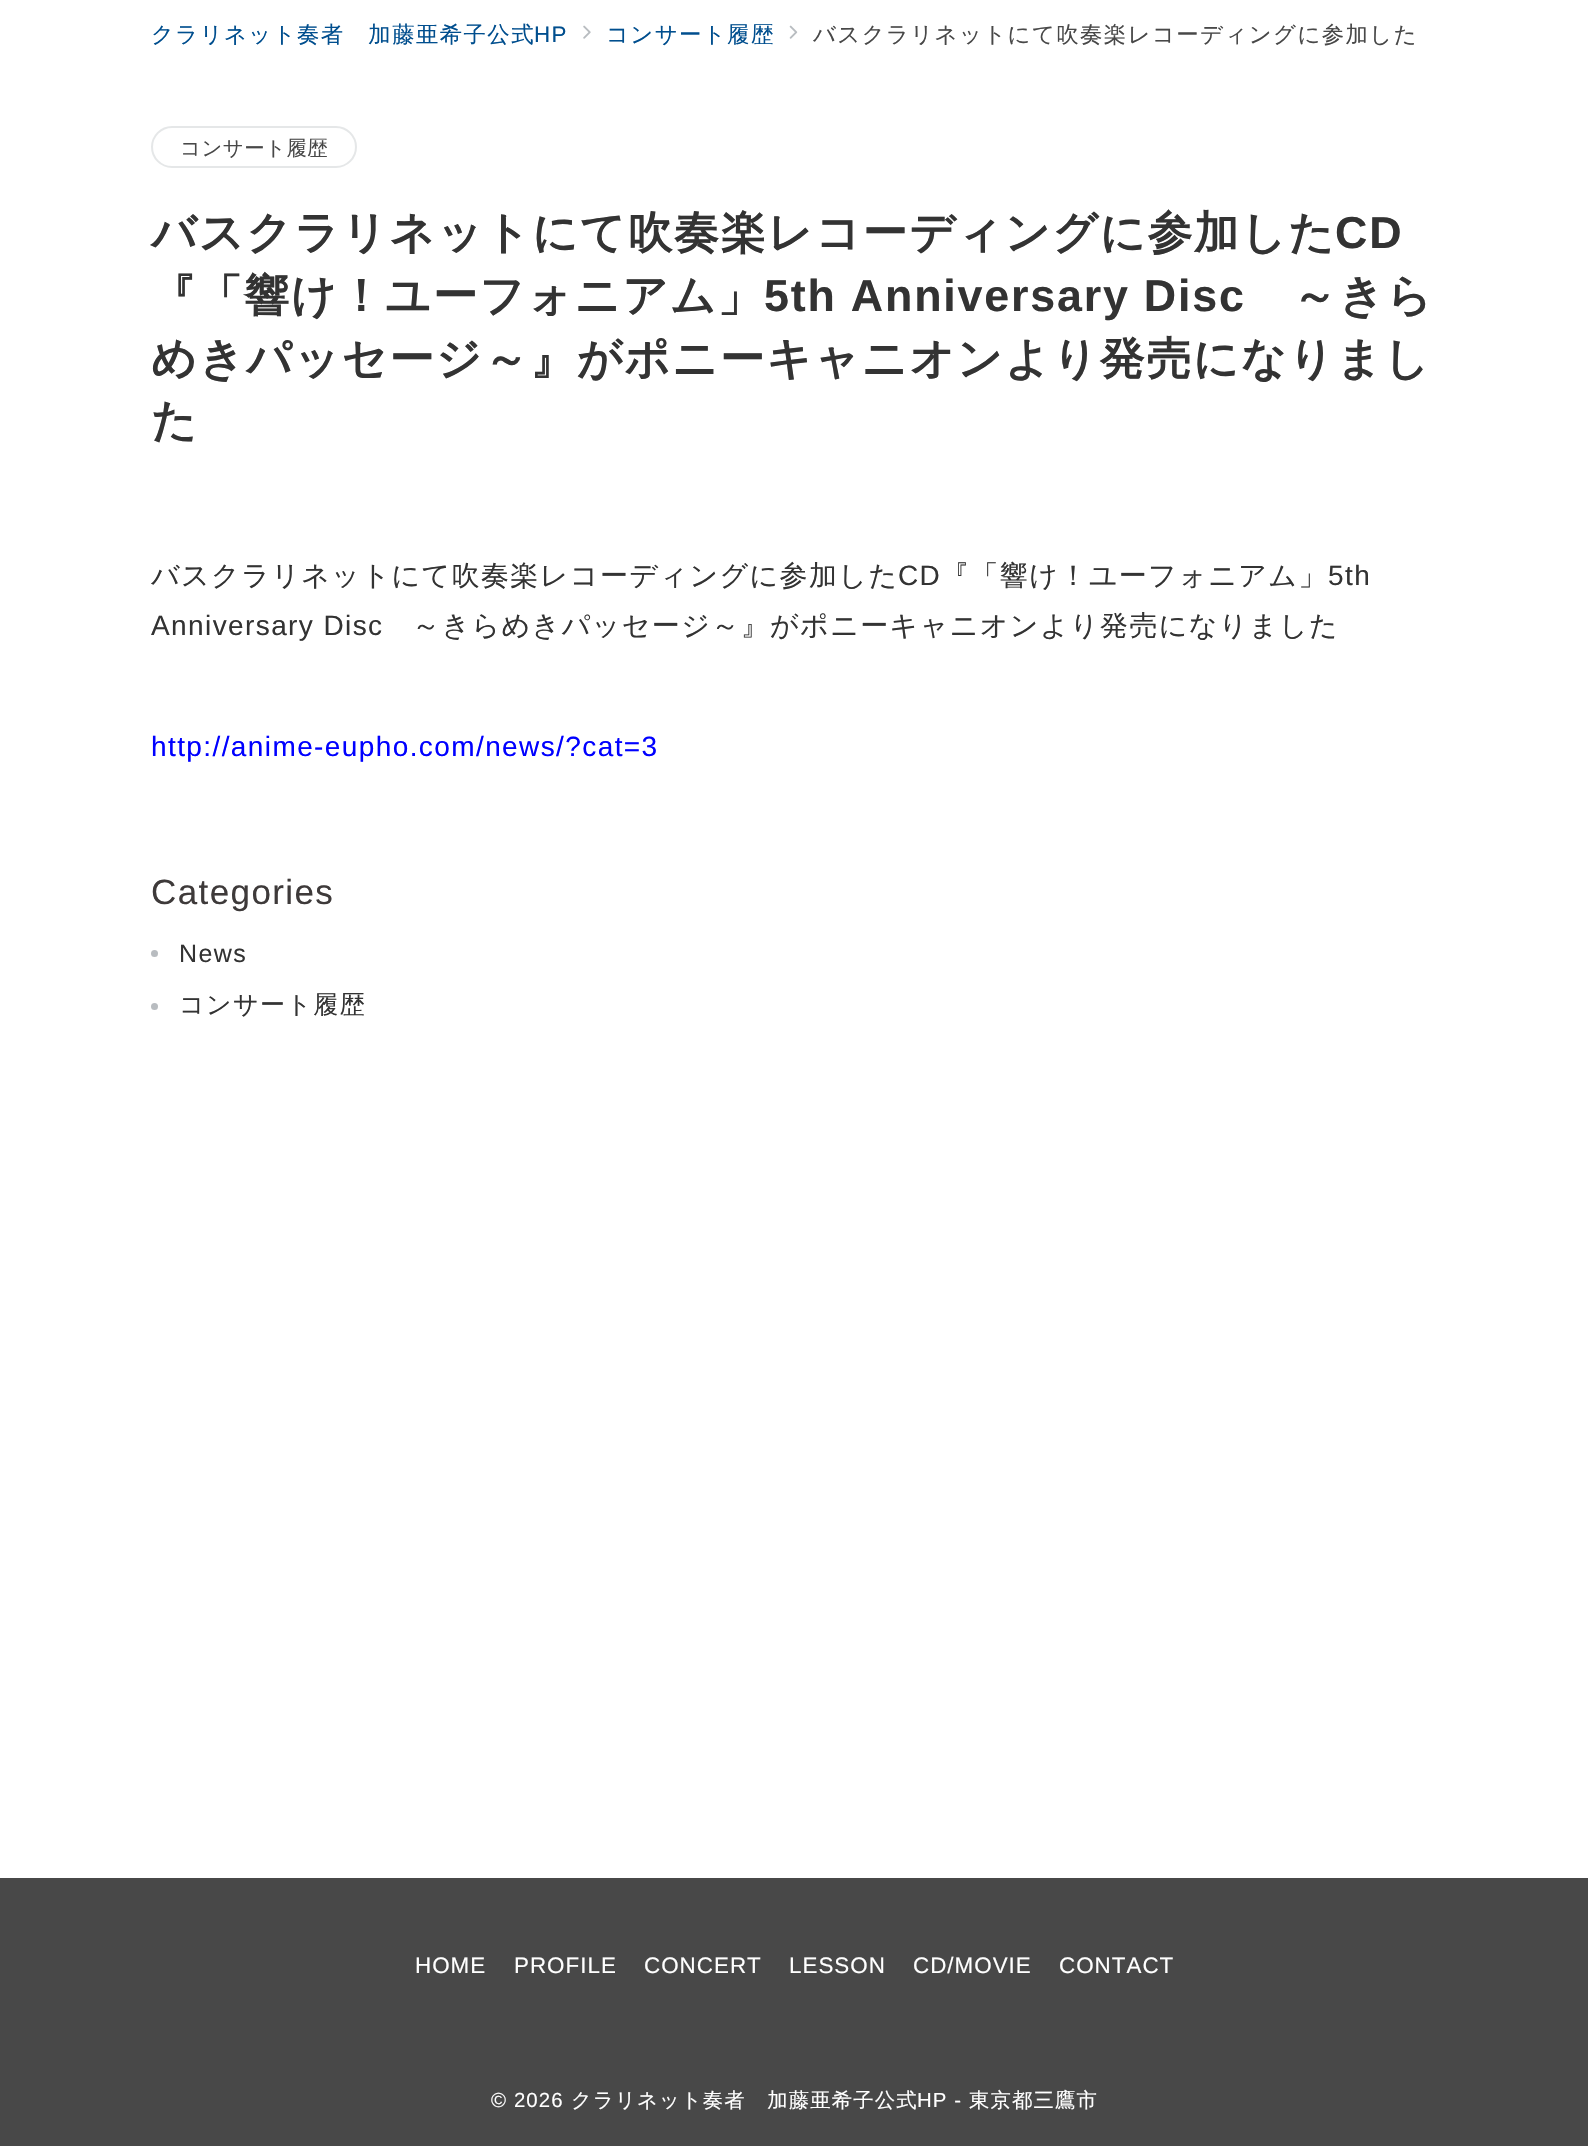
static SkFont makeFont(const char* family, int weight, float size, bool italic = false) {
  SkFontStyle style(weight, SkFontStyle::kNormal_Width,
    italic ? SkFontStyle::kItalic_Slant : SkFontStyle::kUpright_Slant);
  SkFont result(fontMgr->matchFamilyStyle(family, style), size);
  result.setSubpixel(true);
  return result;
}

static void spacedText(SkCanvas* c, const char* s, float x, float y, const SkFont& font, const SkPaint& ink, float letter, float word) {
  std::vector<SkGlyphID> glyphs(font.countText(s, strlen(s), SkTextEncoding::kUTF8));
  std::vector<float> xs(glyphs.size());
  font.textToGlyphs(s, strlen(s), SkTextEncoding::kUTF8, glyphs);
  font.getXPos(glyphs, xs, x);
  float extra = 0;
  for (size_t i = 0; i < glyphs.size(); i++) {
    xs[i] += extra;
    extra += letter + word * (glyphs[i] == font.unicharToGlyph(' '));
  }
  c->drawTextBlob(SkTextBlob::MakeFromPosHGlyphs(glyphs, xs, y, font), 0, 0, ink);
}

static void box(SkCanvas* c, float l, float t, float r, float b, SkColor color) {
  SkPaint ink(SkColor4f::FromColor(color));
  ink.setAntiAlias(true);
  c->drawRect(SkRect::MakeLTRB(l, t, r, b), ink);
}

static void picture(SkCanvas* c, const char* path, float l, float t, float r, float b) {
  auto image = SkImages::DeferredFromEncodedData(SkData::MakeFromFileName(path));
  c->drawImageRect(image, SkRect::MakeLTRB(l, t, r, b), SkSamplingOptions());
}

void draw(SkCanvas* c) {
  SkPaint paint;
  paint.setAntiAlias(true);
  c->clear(0xffffffff);
  SkFont face1 = makeFont("WenQuanYi Zen Hei", 500, 22.4f);
  paint.setColor(0xff004e8e);
  spacedText(c, "クラリネット奏者　加藤亜希子公式", 151, 42, face1, paint, 1.4f, 0);
  SkFont face2 = makeFont("Liberation Sans", 400, 22.4f);
  spacedText(c, "HP", 534, 42, face2, paint, 1.4f, 0);
  picture(c, "img_01.png", 583, 25, 591, 39);
  spacedText(c, "コンサート履歴", 606, 42, face1, paint, 1.4f, 0);
  picture(c, "img_02.png", 789, 25, 798, 39);
  paint.setColor(0xff484848);
  spacedText(c, "バスクラリネットにて吹奏楽レコーディングに参加した", 813, 42, face1, paint, 1.4f, 0);
  paint.setStyle(SkPaint::kStroke_Style);
  paint.setStrokeWidth(2);
  paint.setColor(0xffe5e7e8);
  c->drawRoundRect(SkRect::MakeLTRB(152, 127, 356, 167), 20, 20, paint);
  SkFont face3 = makeFont("WenQuanYi Zen Hei", 500, 20.4f);
  paint.setStyle(SkPaint::kFill_Style);
  paint.setColor(0xff484848);
  spacedText(c, "コンサート履歴", 180, 155, face3, paint, 0.5f, 0);
  SkFont face4 = makeFont("WenQuanYi Zen Hei", 700, 44.8f);
  paint.setColor(0xff333333);
  spacedText(c, "バスクラリネットにて吹奏楽レコーディングに参加した", 151, 248, face4, paint, 1.8f, 0);
  SkFont face5 = makeFont("Liberation Sans", 700, 44.8f);
  spacedText(c, "CD", 1335, 248, face5, paint, 1.8f, 0);
  spacedText(c, "『「響け！ユーフォニアム」", 151, 311, face4, paint, 1.8f, 0);
  spacedText(c, "5th Anniversary Disc", 764, 311, face5, paint, 1.8f, 0);
  spacedText(c, "～きら", 1292, 311, face4, paint, 1.8f, 0);
  spacedText(c, "めきパッセージ～』がポニーキャニオンより発売になりまし", 151, 374, face4, paint, 1.8f, 0);
  spacedText(c, "た", 151, 436, face4, paint, 1.8f, 0);
  SkFont face6 = makeFont("WenQuanYi Zen Hei", 500, 28);
  spacedText(c, "バスクラリネットにて吹奏楽レコーディングに参加した", 151, 585, face6, paint, 1.4f, 0);
  SkFont face7 = makeFont("Liberation Sans", 400, 28);
  spacedText(c, "CD", 898, 585, face7, paint, 1.4f, 0);
  spacedText(c, "『「響け！ユーフォニアム」", 941, 585, face6, paint, 1.4f, 0);
  spacedText(c, "5th", 1328, 585, face7, paint, 1.4f, 0);
  spacedText(c, "Anniversary Disc", 151, 635, face7, paint, 1.4f, 0);
  spacedText(c, "～きらめきパッセージ～』がポニーキャニオンより発売になりました", 412, 635, face6, paint, 1.4f, 0);
  paint.setColor(0xff0000ff);
  spacedText(c, "http://anime-eupho.com/news/?cat=3", 151, 756, face7, paint, 1.4f, 0);
  SkFont face8 = makeFont("Liberation Sans", 400, 35);
  paint.setColor(0xff3e3a3a);
  spacedText(c, "Categories", 151, 904, face8, paint, 1.4f, 0);
  paint.setColor(0xffb8bcc0);
  c->drawCircle(154.5f, 953.5f, 3.5f, paint);
  SkFont face9 = makeFont("Liberation Sans", 400, 25);
  paint.setColor(0xff333333);
  spacedText(c, "News", 179, 962, face9, paint, 1.4f, 0);
  paint.setColor(0xffb8bcc0);
  c->drawCircle(154.5f, 1006.5f, 3.5f, paint);
  SkFont face10 = makeFont("WenQuanYi Zen Hei", 500, 25);
  paint.setColor(0xff333333);
  spacedText(c, "コンサート履歴", 179, 1013, face10, paint, 1.4f, 0);
  box(c, 0, 1878, 1588, 2146, 0xff484848);
  paint.setColor(0xffffffff);
  spacedText(c, "HOME", 415, 1973, face2, paint, 1, 0);
  spacedText(c, "PROFILE", 514, 1973, face2, paint, 1, 0);
  spacedText(c, "CONCERT", 644, 1973, face2, paint, 1, 0);
  spacedText(c, "LESSON", 789, 1973, face2, paint, 1, 0);
  spacedText(c, "CD/MOVIE", 913, 1973, face2, paint, 1, 0);
  spacedText(c, "CONTACT", 1059, 1973, face2, paint, 1, 0);
  SkFont face11 = makeFont("Liberation Sans", 400, 20.4f);
  spacedText(c, "© 2026", 491, 2107, face11, paint, 1.1f, 0);
  spacedText(c, "クラリネット奏者　加藤亜希子公式", 571, 2107, face3, paint, 1.1f, 0);
  spacedText(c, "HP -", 917, 2107, face11, paint, 1.1f, 0);
  spacedText(c, "東京都三鷹市", 969, 2107, face3, paint, 1.1f, 0);
}
